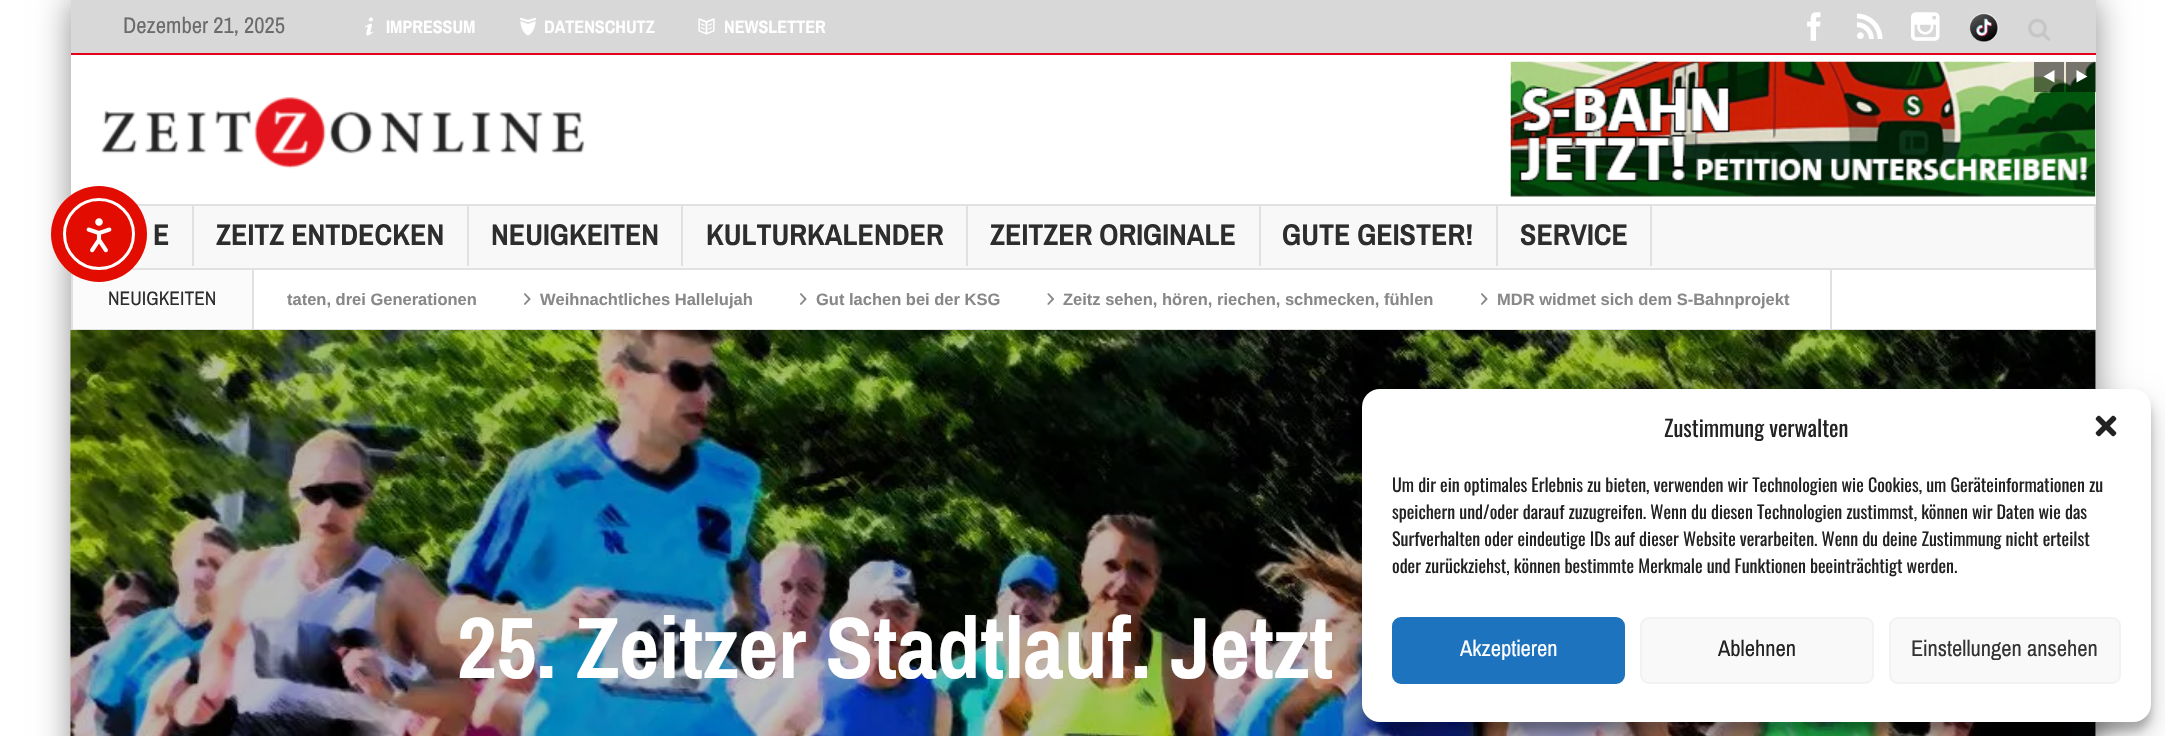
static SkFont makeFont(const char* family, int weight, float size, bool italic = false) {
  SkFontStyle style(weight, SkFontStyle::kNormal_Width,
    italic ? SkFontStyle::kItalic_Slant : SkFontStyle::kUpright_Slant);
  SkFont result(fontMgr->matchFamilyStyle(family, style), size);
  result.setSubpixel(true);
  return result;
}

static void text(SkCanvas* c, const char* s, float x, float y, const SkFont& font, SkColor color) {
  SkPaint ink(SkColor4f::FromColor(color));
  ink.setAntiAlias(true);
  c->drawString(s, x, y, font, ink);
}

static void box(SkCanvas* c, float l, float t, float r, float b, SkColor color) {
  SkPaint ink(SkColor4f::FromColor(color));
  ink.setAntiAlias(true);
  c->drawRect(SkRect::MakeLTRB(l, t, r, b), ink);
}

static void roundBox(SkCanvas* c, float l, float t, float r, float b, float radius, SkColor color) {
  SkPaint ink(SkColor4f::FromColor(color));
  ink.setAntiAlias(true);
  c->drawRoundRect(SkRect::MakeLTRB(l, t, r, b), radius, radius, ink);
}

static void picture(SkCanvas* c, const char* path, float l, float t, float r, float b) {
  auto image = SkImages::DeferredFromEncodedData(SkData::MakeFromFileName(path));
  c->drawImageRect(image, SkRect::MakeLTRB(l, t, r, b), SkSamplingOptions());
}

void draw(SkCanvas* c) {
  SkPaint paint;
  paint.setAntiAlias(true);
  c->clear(0xffffffff);
  paint.setColor(0x70000000);
  paint.setMaskFilter(SkMaskFilter::MakeBlur(kNormal_SkBlurStyle, 16));
  c->drawRect(SkRect::MakeLTRB(71, 0, 2096, 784), paint);
  paint.setMaskFilter(nullptr);
  box(c, 71, 55, 2096, 736, 0xffffffff);
  box(c, 132, 206, 2094, 268, 0xfff8f8f8);
  paint.setStyle(SkPaint::kStroke_Style);
  paint.setStrokeWidth(2);
  paint.setColor(0xffe1e1e1);
  c->drawRect(SkRect::MakeLTRB(72, 205, 2095, 269), paint);
  box(c, 73, 270, 252, 329, 0xfffbfbfb);
  box(c, 71, 270, 73, 329, 0xffe1e1e1);
  paint.setStyle(SkPaint::kFill_Style);
  paint.setColor(0xffe30c00);
  c->drawCircle(99, 234, 48, paint);
  paint.setStyle(SkPaint::kStroke_Style);
  paint.setStrokeWidth(3);
  paint.setColor(0xffffffff);
  c->drawCircle(99, 234, 34.5f, paint);
  picture(c, "img_01.png", 86, 218, 112, 253);
  box(c, 71, 0, 2096, 53, 0xffd8d8d8);
  box(c, 71, 53, 2096, 55, 0xffe2001a);
  SkFont face1 = makeFont("Archivo Narrow", 400, 22.5f);
  text(c, "Dezember 21, 2025", 123, 33, face1, 0xff6b6b6b);
  picture(c, "img_02.png", 365, 17, 373, 36);
  SkFont face2 = makeFont("Archivo Narrow", 700, 18);
  text(c, "IMPRESSUM", 386, 33, face2, 0xffffffff);
  picture(c, "img_03.png", 520, 17, 536, 36);
  text(c, "DATENSCHUTZ", 544, 33, face2, 0xffffffff);
  picture(c, "img_04.png", 698, 18, 715, 35);
  text(c, "NEWSLETTER", 724, 33, face2, 0xffffffff);
  picture(c, "img_05.png", 1807, 12, 1821, 41);
  picture(c, "img_06.png", 1857, 13, 1883, 39);
  picture(c, "img_07.png", 1911, 12, 1940, 41);
  picture(c, "img_08.png", 1969, 13, 1999, 43);
  picture(c, "img_09.png", 2028, 18, 2050, 41);
  picture(c, "img_10.png", 101, 97, 585, 169);
  picture(c, "img_11.png", 1510, 61, 2096, 197);
  box(c, 2034, 62, 2064, 92, 0x80000000);
  paint.setStyle(SkPaint::kFill_Style);
  c->drawPath(SkPathBuilder().moveTo(2054.5f, 70).lineTo(2054.5f, 82.5f).lineTo(2043.5f, 76.5f).close().detach(), paint);
  box(c, 2066, 62, 2096, 92, 0x80000000);
  c->drawPath(SkPathBuilder().moveTo(2076.5f, 70).lineTo(2076.5f, 82.5f).lineTo(2087.5f, 76.5f).close().detach(), paint);
  box(c, 192, 206, 194, 266, 0xffe1e1e1);
  SkFont face3 = makeFont("Archivo Narrow", 700, 30);
  text(c, "E", 153, 245, face3, 0xff2d2d2d);
  box(c, 467, 206, 469, 266, 0xffe1e1e1);
  text(c, "ZEITZ ENTDECKEN", 216, 245, face3, 0xff2d2d2d);
  box(c, 681, 206, 683, 266, 0xffe1e1e1);
  text(c, "NEUIGKEITEN", 491, 245, face3, 0xff2d2d2d);
  box(c, 966, 206, 968, 266, 0xffe1e1e1);
  text(c, "KULTURKALENDER", 706, 245, face3, 0xff2d2d2d);
  box(c, 1259, 206, 1261, 266, 0xffe1e1e1);
  text(c, "ZEITZER ORIGINALE", 990, 245, face3, 0xff2d2d2d);
  box(c, 1496, 206, 1498, 266, 0xffe1e1e1);
  text(c, "GUTE GEISTER!", 1282, 245, face3, 0xff2d2d2d);
  box(c, 1650, 206, 1652, 266, 0xffe1e1e1);
  text(c, "SERVICE", 1520, 245, face3, 0xff2d2d2d);
  box(c, 71, 329, 2096, 331, 0xffe1e1e1);
  box(c, 252, 270, 254, 329, 0xffe1e1e1);
  SkFont face4 = makeFont("Archivo Narrow", 400, 19.5f);
  text(c, "NEUIGKEITEN", 108, 305, face4, 0xff2d2d2d);
  box(c, 1830, 270, 1832, 329, 0xffe1e1e1);
  SkFont face5 = makeFont("Liberation Sans", 700, 16.5f);
  text(c, "taten, drei Generationen", 287, 305, face5, 0xff888888);
  picture(c, "img_12.png", 524, 293, 531, 305);
  text(c, "Weihnachtliches Hallelujah", 540, 305, face5, 0xff888888);
  picture(c, "img_12.png", 800, 293, 807, 305);
  text(c, "Gut lachen bei der KSG", 816, 305, face5, 0xff888888);
  picture(c, "img_13.png", 1047, 293, 1054, 305);
  text(c, "Zeitz sehen, hören, riechen, schmecken, fühlen", 1063, 305, face5, 0xff888888);
  picture(c, "img_12.png", 1481, 293, 1488, 305);
  text(c, "MDR widmet sich dem S-Bahnprojekt", 1497, 305, face5, 0xff888888);
  picture(c, "img_14.png", 70, 330, 2096, 736);
  picture(c, "img_15.png", 70, 330, 2096, 736);
  SkFont face6 = makeFont("Archivo Narrow", 700, 87);
  text(c, "25. Zeitzer Stadtlauf. Jetzt", 457, 678, face6, 0xffffffff);
  paint.setColor(0x3b000000);
  paint.setMaskFilter(SkMaskFilter::MakeBlur(kNormal_SkBlurStyle, 4.5f));
  c->drawRoundRect(SkRect::MakeLTRB(1362, 398, 2151, 731), 18, 18, paint);
  paint.setMaskFilter(nullptr);
  paint.setColor(0x30000000);
  paint.setMaskFilter(SkMaskFilter::MakeBlur(kNormal_SkBlurStyle, 15));
  c->drawRoundRect(SkRect::MakeLTRB(1362, 404, 2151, 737), 18, 18, paint);
  paint.setMaskFilter(nullptr);
  roundBox(c, 1362, 389, 2151, 722, 18, 0xffffffff);
  SkFont face7 = makeFont("Oswald", 400, 22.5f);
  text(c, "Zustimmung verwalten", 1664, 437, face7, 0xff222222);
  picture(c, "img_16.png", 2095, 415, 2117, 437);
  SkFont face8 = makeFont("Oswald", 400, 18);
  text(c, "Um dir ein optimales Erlebnis zu bieten, verwenden wir Technologien wie Cookies, um Geräteinformationen zu", 1392, 492, face8, 0xff222222);
  text(c, "speichern und/oder darauf zuzugreifen. Wenn du diesen Technologien zustimmst, können wir Daten wie das", 1392, 519, face8, 0xff222222);
  text(c, "Surfverhalten oder eindeutige IDs auf dieser Website verarbeiten. Wenn du deine Zustimmung nicht erteilst", 1392, 546, face8, 0xff222222);
  text(c, "oder zurückziehst, können bestimmte Merkmale und Funktionen beeinträchtigt werden.", 1392, 573, face8, 0xff222222);
  paint.setColor(0xff1e73be);
  c->drawRoundRect(SkRect::MakeLTRB(1393, 618, 1624, 683), 8, 8, paint);
  paint.setStyle(SkPaint::kStroke_Style);
  paint.setStrokeWidth(2);
  c->drawRoundRect(SkRect::MakeLTRB(1393, 618, 1624, 683), 8, 8, paint);
  text(c, "Akzeptieren", 1460, 656, face1, 0xffffffff);
  paint.setStyle(SkPaint::kFill_Style);
  paint.setColor(0xfff9f9f9);
  c->drawRoundRect(SkRect::MakeLTRB(1641, 618, 1873, 683), 8, 8, paint);
  paint.setStyle(SkPaint::kStroke_Style);
  paint.setColor(0xfff2f2f2);
  c->drawRoundRect(SkRect::MakeLTRB(1641, 618, 1873, 683), 8, 8, paint);
  text(c, "Ablehnen", 1718, 656, face1, 0xff222222);
  paint.setStyle(SkPaint::kFill_Style);
  paint.setColor(0xfff9f9f9);
  c->drawRoundRect(SkRect::MakeLTRB(1890, 618, 2120, 683), 8, 8, paint);
  paint.setStyle(SkPaint::kStroke_Style);
  paint.setColor(0xfff2f2f2);
  c->drawRoundRect(SkRect::MakeLTRB(1890, 618, 2120, 683), 8, 8, paint);
  text(c, "Einstellungen ansehen", 1911, 656, face1, 0xff333333);
}
